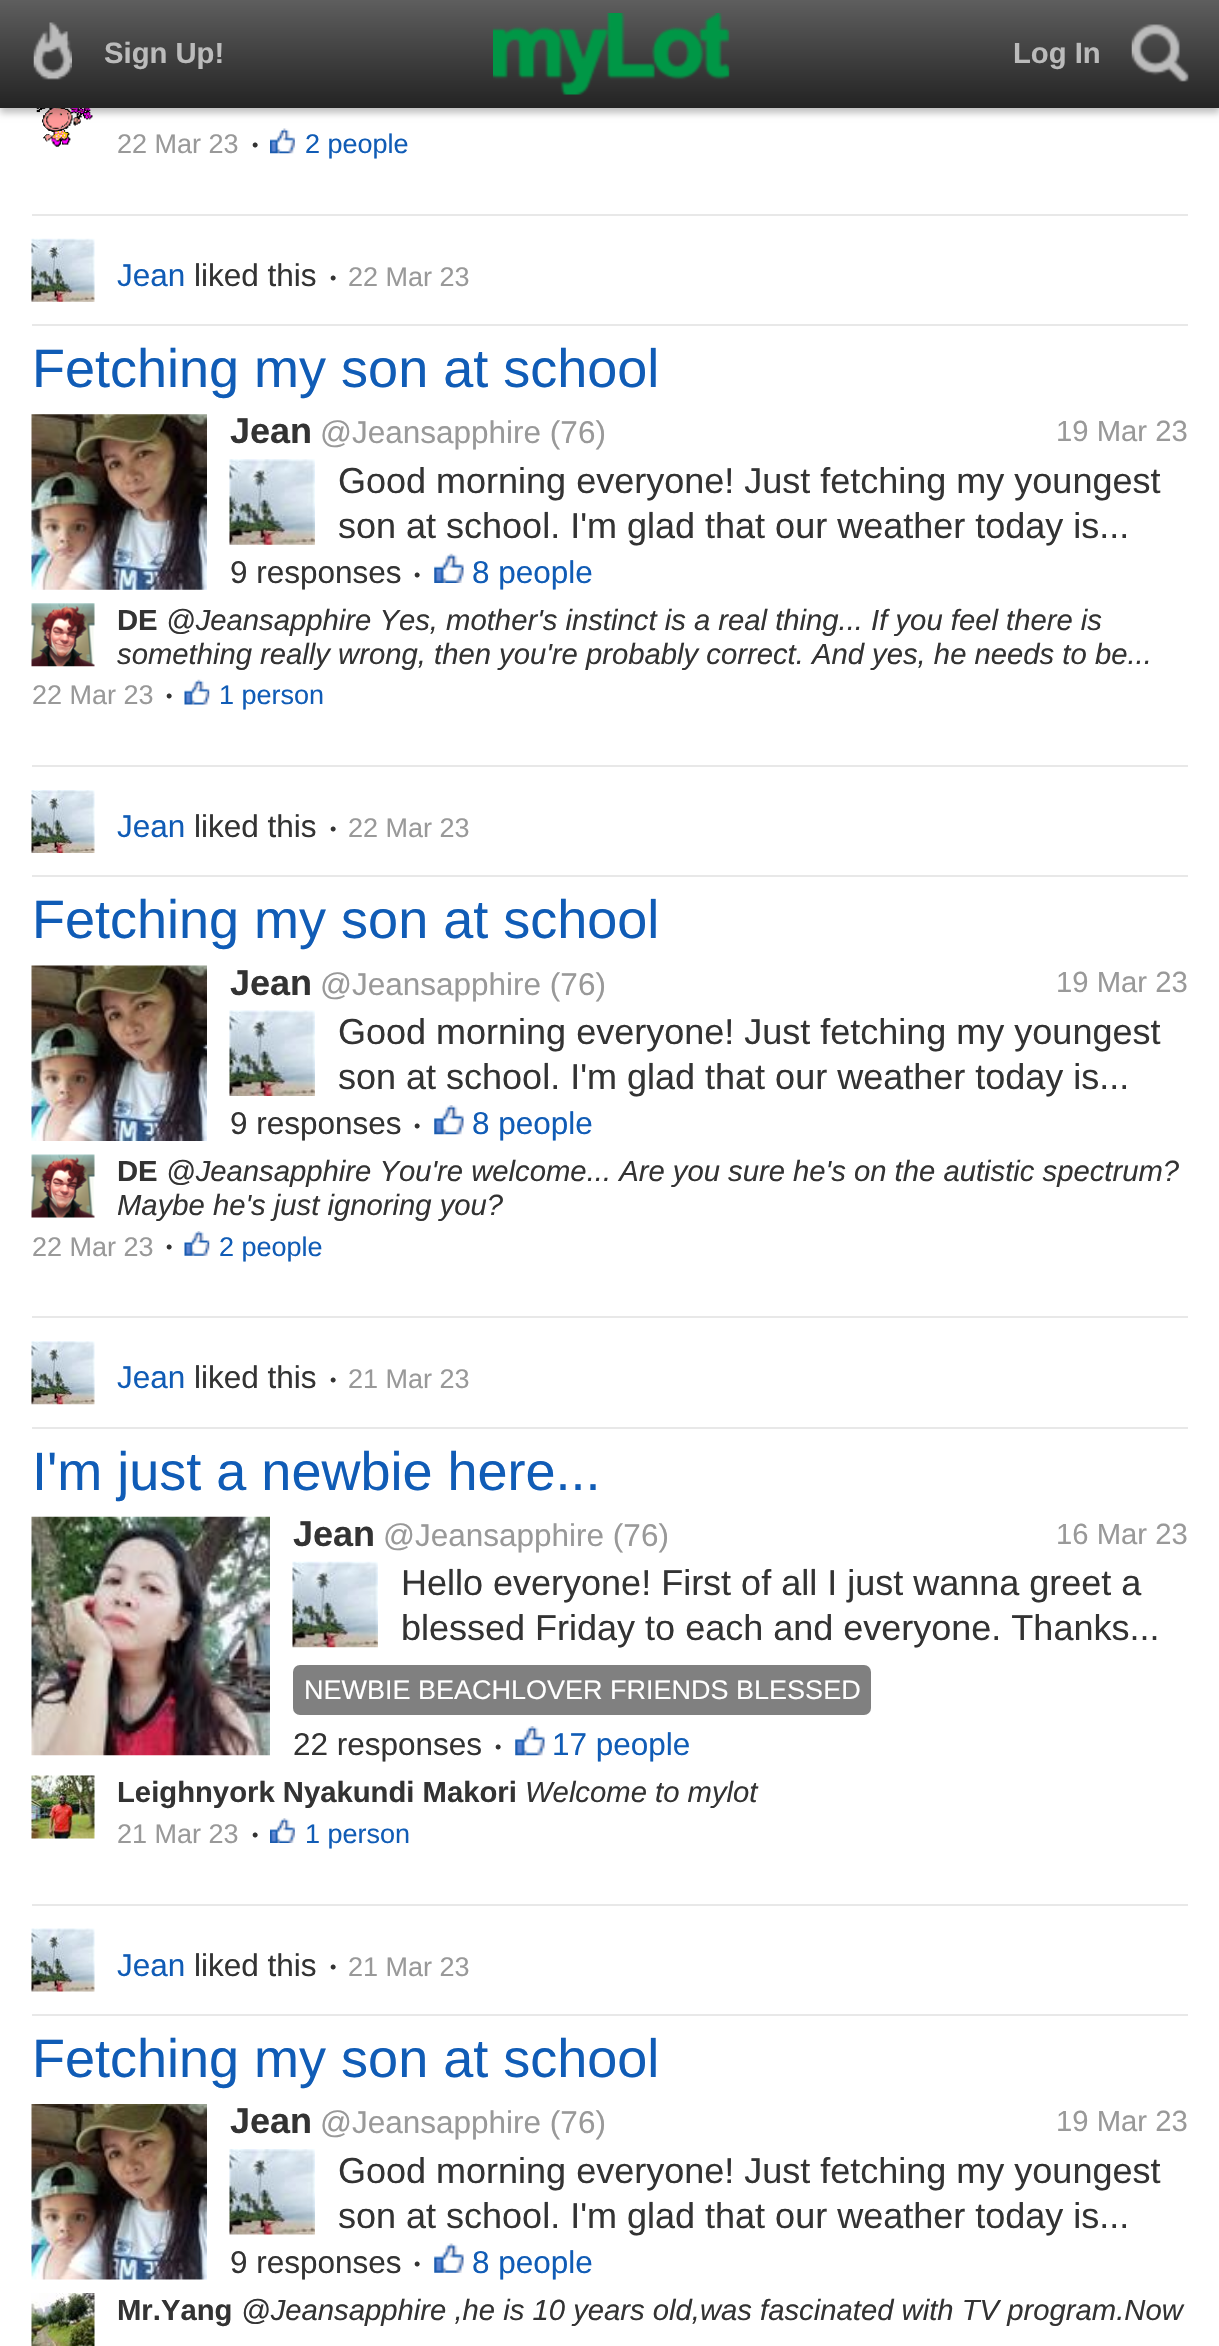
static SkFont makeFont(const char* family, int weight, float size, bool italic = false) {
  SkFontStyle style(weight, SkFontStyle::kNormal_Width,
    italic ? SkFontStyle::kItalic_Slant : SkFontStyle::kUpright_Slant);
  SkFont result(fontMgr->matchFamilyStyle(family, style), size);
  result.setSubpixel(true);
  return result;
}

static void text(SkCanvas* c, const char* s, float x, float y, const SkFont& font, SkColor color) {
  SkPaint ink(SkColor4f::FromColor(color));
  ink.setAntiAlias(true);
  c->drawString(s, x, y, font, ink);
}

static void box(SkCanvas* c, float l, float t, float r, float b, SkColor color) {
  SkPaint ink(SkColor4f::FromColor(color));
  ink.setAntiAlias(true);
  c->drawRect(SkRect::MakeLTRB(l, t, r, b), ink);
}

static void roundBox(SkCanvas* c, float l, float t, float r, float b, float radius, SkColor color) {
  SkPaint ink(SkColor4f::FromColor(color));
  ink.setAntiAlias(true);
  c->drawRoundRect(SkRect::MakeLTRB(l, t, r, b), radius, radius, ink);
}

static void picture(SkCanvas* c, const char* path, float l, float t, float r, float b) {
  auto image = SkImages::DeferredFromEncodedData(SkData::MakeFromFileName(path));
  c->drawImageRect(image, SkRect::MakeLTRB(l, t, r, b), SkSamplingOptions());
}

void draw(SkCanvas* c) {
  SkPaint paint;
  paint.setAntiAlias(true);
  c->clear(0xffffffff);
  picture(c, "img_04.png", 36, 108, 93, 147);
  paint.setColor(0x40000000);
  paint.setMaskFilter(SkMaskFilter::MakeBlur(kNormal_SkBlurStyle, 3.5f));
  c->drawRect(SkRect::MakeLTRB(0, 5, 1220, 113), paint);
  paint.setMaskFilter(nullptr);
  {
    const SkColor colors[] = {0xff5e5e5e, 0xff232323};
    const float stops[] = {0, 1};
    const SkPoint ends[] = {{610, 0}, {610, 108}};
    paint.setShader(SkGradientShader::MakeLinear(ends, colors, stops, 2, SkTileMode::kClamp));
    paint.setAlpha(255);
  }
  c->drawRect(SkRect::MakeLTRB(0, 0, 1219, 108), paint);
  picture(c, "img_01.png", 33, 22, 72, 80);
  SkFont face1 = makeFont("Liberation Sans", 700, 29.25f);
  text(c, "Sign Up!", 104, 63, face1, 0xffbbbbbb);
  picture(c, "img_02.png", 493, 13, 730, 95);
  text(c, "Log In", 1013, 63, face1, 0xffbbbbbb);
  picture(c, "img_03.png", 1131, 24, 1189, 82);
  SkFont face2 = makeFont("Liberation Sans", 400, 27);
  text(c, "22 Mar 23", 117, 153, face2, 0xff999999);
  SkFont face3 = makeFont("Liberation Sans", 400, 18);
  text(c, "•", 252, 151, face3, 0xff333333);
  picture(c, "img_05.png", 270, 128, 295, 154);
  text(c, "2 people", 305, 153, face2, 0xff105cb6);
  box(c, 32, 214, 1188, 216, 0xffe8e8e8);
  box(c, 32, 324, 1188, 326, 0xffe8e8e8);
  picture(c, "img_06.png", 31, 238, 95, 302);
  SkFont face4 = makeFont("Liberation Sans", 400, 31.5f);
  text(c, "Jean", 117, 286, face4, 0xff105cb6);
  text(c, "liked this", 194, 286, face4, 0xff333333);
  text(c, "•", 330, 284, face3, 0xff333333);
  text(c, "22 Mar 23", 348, 286, face2, 0xff999999);
  SkFont face5 = makeFont("Liberation Sans", 400, 54);
  text(c, "Fetching my son at school", 32, 387, face5, 0xff105cb6);
  picture(c, "img_07.png", 31, 414, 207, 590);
  SkFont face6 = makeFont("Liberation Sans", 700, 36);
  text(c, "Jean", 230, 443, face6, 0xff333333);
  text(c, "@Jeansapphire (76)", 320, 443, face4, 0xff999999);
  SkFont face7 = makeFont("Liberation Sans", 400, 29.25f);
  text(c, "19 Mar 23", 1056, 441, face7, 0xff999999);
  picture(c, "img_08.png", 229, 459, 315, 545);
  SkFont face8 = makeFont("Liberation Sans", 400, 36);
  text(c, "Good morning everyone! Just fetching my youngest", 338, 493, face8, 0xff333333);
  text(c, "son at school. I'm glad that our weather today is...", 338, 538, face8, 0xff333333);
  text(c, "9 responses", 230, 583, face4, 0xff333333);
  text(c, "•", 414, 581, face3, 0xff333333);
  picture(c, "img_09.png", 434, 553, 464, 583);
  text(c, "8 people", 472, 583, face4, 0xff105cb6);
  picture(c, "img_10.png", 31, 603, 95, 667);
  text(c, "DE", 117, 630, face1, 0xff333333);
  SkFont face9 = makeFont("Liberation Sans", 400, 29.25f, true);
  text(c, "@Jeansapphire Yes, mother's instinct is a real thing... If you feel there is", 166, 630, face9, 0xff333333);
  text(c, "something really wrong, then you're probably correct. And yes, he needs to be...", 117, 664, face9, 0xff333333);
  text(c, "22 Mar 23", 32, 704, face2, 0xff999999);
  text(c, "•", 166, 702, face3, 0xff333333);
  picture(c, "img_11.png", 184, 679, 210, 705);
  text(c, "1 person", 219, 704, face2, 0xff105cb6);
  box(c, 32, 765, 1188, 767, 0xffe8e8e8);
  box(c, 32, 875, 1188, 877, 0xffe8e8e8);
  picture(c, "img_12.png", 31, 790, 95, 853);
  text(c, "Jean", 117, 837, face4, 0xff105cb6);
  text(c, "liked this", 194, 837, face4, 0xff333333);
  text(c, "•", 330, 835, face3, 0xff333333);
  text(c, "22 Mar 23", 348, 837, face2, 0xff999999);
  text(c, "Fetching my son at school", 32, 938, face5, 0xff105cb6);
  picture(c, "img_13.png", 31, 965, 207, 1141);
  text(c, "Jean", 230, 995, face6, 0xff333333);
  text(c, "@Jeansapphire (76)", 320, 995, face4, 0xff999999);
  text(c, "19 Mar 23", 1056, 992, face7, 0xff999999);
  picture(c, "img_14.png", 229, 1010, 315, 1096);
  text(c, "Good morning everyone! Just fetching my youngest", 338, 1044, face8, 0xff333333);
  text(c, "son at school. I'm glad that our weather today is...", 338, 1089, face8, 0xff333333);
  text(c, "9 responses", 230, 1134, face4, 0xff333333);
  text(c, "•", 414, 1132, face3, 0xff333333);
  picture(c, "img_15.png", 434, 1105, 464, 1135);
  text(c, "8 people", 472, 1134, face4, 0xff105cb6);
  picture(c, "img_16.png", 31, 1154, 95, 1218);
  text(c, "DE", 117, 1181, face1, 0xff333333);
  text(c, "@Jeansapphire You're welcome... Are you sure he's on the autistic spectrum?", 166, 1181, face9, 0xff333333);
  text(c, "Maybe he's just ignoring you?", 117, 1215, face9, 0xff333333);
  text(c, "22 Mar 23", 32, 1256, face2, 0xff999999);
  text(c, "•", 166, 1253, face3, 0xff333333);
  picture(c, "img_17.png", 184, 1231, 210, 1256);
  text(c, "2 people", 219, 1256, face2, 0xff105cb6);
  box(c, 32, 1316, 1188, 1318, 0xffe8e8e8);
  box(c, 32, 1427, 1188, 1429, 0xffe8e8e8);
  picture(c, "img_18.png", 31, 1341, 95, 1405);
  text(c, "Jean", 117, 1388, face4, 0xff105cb6);
  text(c, "liked this", 194, 1388, face4, 0xff333333);
  text(c, "•", 330, 1386, face3, 0xff333333);
  text(c, "21 Mar 23", 348, 1388, face2, 0xff999999);
  text(c, "I'm just a newbie here...", 32, 1490, face5, 0xff105cb6);
  picture(c, "img_19.png", 31, 1516, 270, 1756);
  text(c, "Jean", 293, 1546, face6, 0xff333333);
  text(c, "@Jeansapphire (76)", 383, 1546, face4, 0xff999999);
  text(c, "16 Mar 23", 1056, 1544, face7, 0xff999999);
  picture(c, "img_20.png", 292, 1561, 378, 1648);
  text(c, "Hello everyone! First of all I just wanna greet a", 401, 1595, face8, 0xff333333);
  text(c, "blessed Friday to each and everyone. Thanks...", 401, 1640, face8, 0xff333333);
  roundBox(c, 293, 1665, 871, 1715, 7, 0xff808080);
  text(c, "NEWBIE BEACHLOVER FRIENDS BLESSED", 304, 1699, face2, 0xffffffff);
  text(c, "22 responses", 293, 1755, face4, 0xff333333);
  text(c, "•", 495, 1753, face3, 0xff333333);
  picture(c, "img_21.png", 515, 1726, 545, 1756);
  text(c, "17 people", 552, 1755, face4, 0xff105cb6);
  picture(c, "img_22.png", 31, 1775, 95, 1839);
  text(c, "Leighnyork Nyakundi Makori", 117, 1802, face1, 0xff333333);
  text(c, "Welcome to mylot", 525, 1802, face9, 0xff333333);
  text(c, "21 Mar 23", 117, 1843, face2, 0xff999999);
  text(c, "•", 252, 1841, face3, 0xff333333);
  picture(c, "img_23.png", 270, 1818, 295, 1843);
  text(c, "1 person", 305, 1843, face2, 0xff105cb6);
  box(c, 32, 1904, 1188, 1906, 0xffe8e8e8);
  box(c, 32, 2014, 1188, 2016, 0xffe8e8e8);
  picture(c, "img_24.png", 31, 1928, 95, 1992);
  text(c, "Jean", 117, 1976, face4, 0xff105cb6);
  text(c, "liked this", 194, 1976, face4, 0xff333333);
  text(c, "•", 330, 1973, face3, 0xff333333);
  text(c, "21 Mar 23", 348, 1976, face2, 0xff999999);
  text(c, "Fetching my son at school", 32, 2077, face5, 0xff105cb6);
  picture(c, "img_25.png", 31, 2104, 207, 2280);
  text(c, "Jean", 230, 2133, face6, 0xff333333);
  text(c, "@Jeansapphire (76)", 320, 2133, face4, 0xff999999);
  text(c, "19 Mar 23", 1056, 2131, face7, 0xff999999);
  picture(c, "img_26.png", 229, 2149, 315, 2235);
  text(c, "Good morning everyone! Just fetching my youngest", 338, 2183, face8, 0xff333333);
  text(c, "son at school. I'm glad that our weather today is...", 338, 2228, face8, 0xff333333);
  text(c, "9 responses", 230, 2273, face4, 0xff333333);
  text(c, "•", 414, 2270, face3, 0xff333333);
  picture(c, "img_27.png", 434, 2243, 464, 2273);
  text(c, "8 people", 472, 2273, face4, 0xff105cb6);
  picture(c, "img_28.png", 31, 2293, 95, 2346);
  text(c, "Mr.Yang", 117, 2320, face1, 0xff333333);
  text(c, "@Jeansapphire ,he is 10 years old,was fascinated with TV program.Now", 241, 2320, face9, 0xff333333);
}
